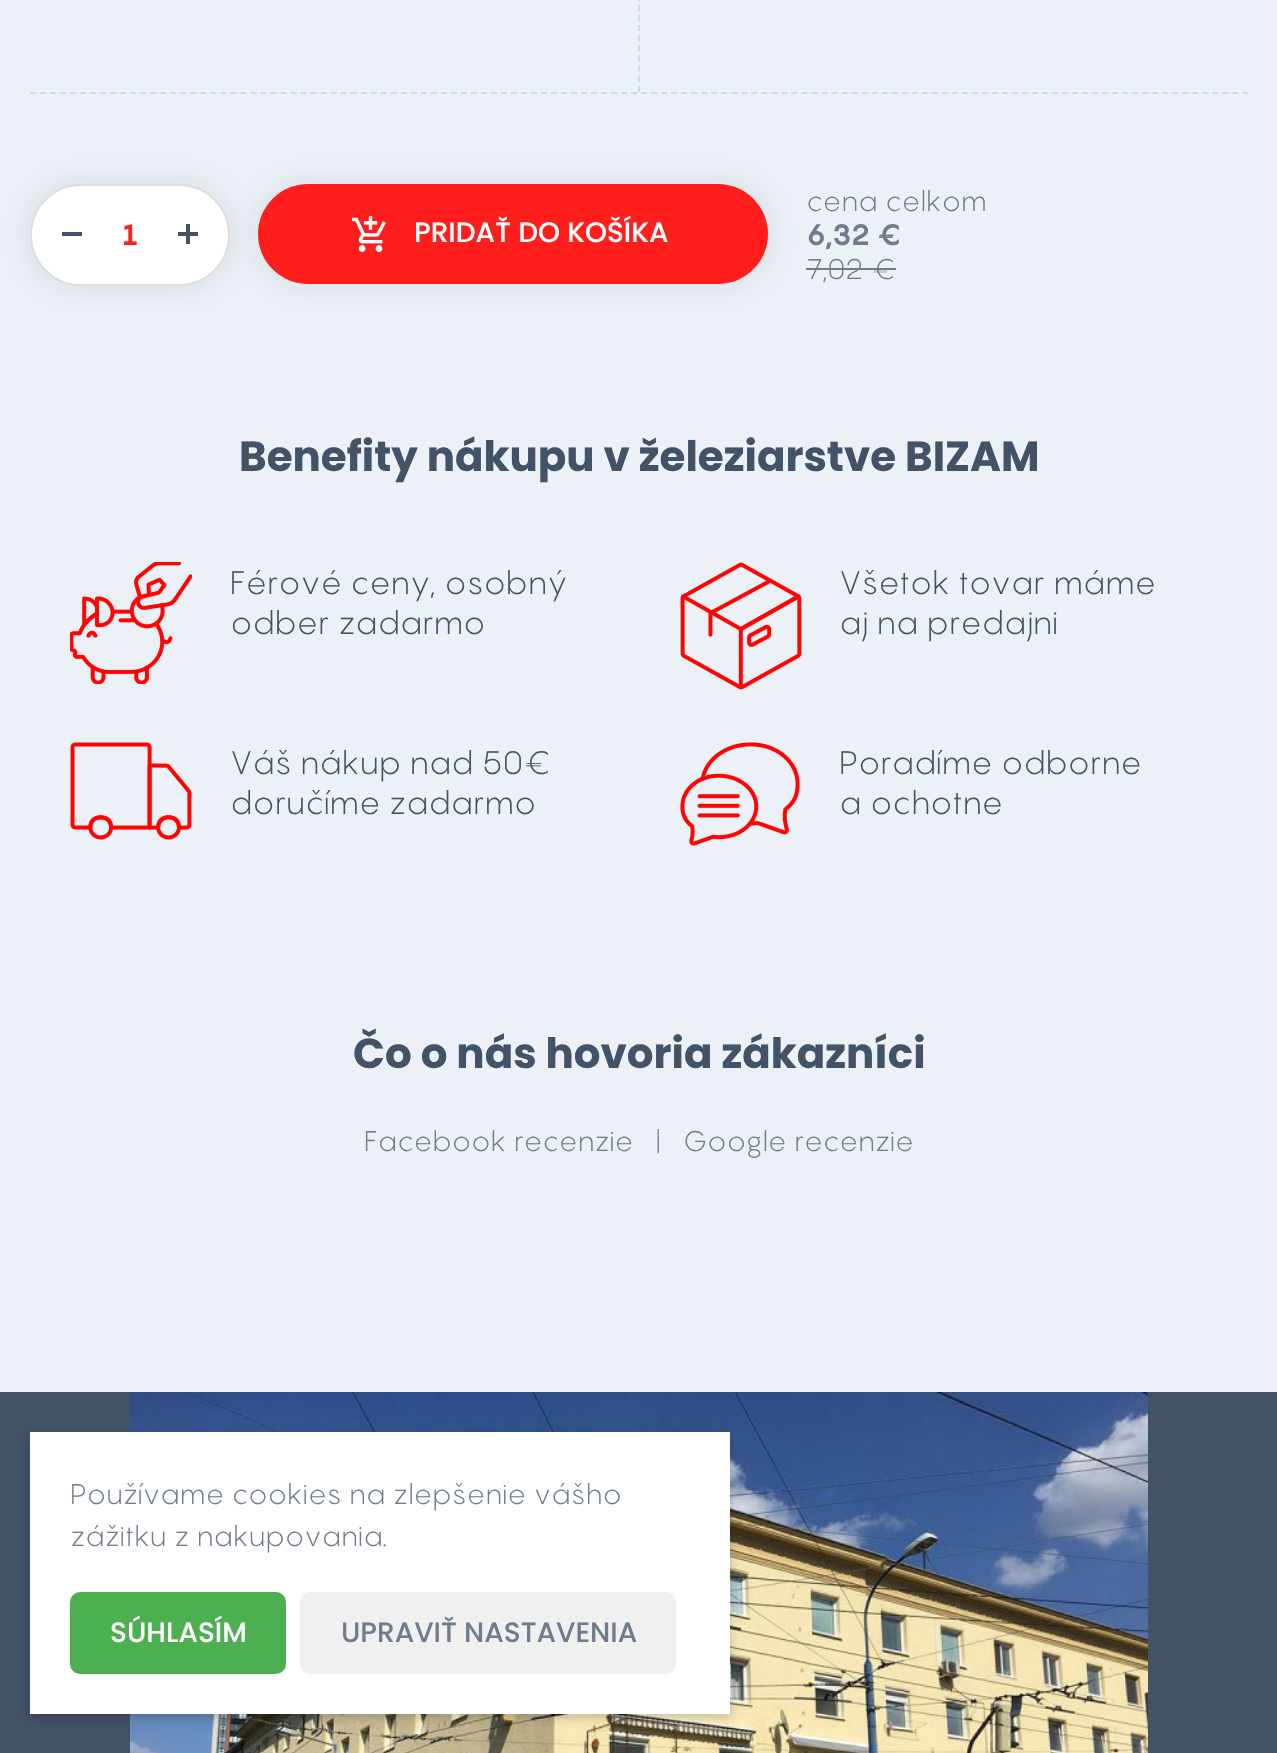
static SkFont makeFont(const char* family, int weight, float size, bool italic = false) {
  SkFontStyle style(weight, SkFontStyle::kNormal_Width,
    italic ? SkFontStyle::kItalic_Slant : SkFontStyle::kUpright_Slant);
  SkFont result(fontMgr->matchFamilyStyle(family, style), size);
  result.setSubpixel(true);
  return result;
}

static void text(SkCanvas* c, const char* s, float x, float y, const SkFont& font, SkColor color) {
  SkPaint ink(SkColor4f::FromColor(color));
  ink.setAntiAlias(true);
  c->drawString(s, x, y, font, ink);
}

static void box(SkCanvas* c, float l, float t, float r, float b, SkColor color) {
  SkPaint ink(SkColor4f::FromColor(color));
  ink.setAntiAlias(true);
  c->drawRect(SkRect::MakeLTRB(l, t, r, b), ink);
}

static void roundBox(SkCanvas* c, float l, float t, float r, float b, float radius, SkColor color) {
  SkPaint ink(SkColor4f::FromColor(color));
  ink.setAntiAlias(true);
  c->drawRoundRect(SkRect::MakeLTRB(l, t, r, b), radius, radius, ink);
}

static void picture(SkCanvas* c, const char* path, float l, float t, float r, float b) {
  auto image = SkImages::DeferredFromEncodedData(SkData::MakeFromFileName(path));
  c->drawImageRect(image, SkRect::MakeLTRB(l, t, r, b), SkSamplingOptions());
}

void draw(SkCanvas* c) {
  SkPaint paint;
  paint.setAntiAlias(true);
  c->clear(0xffecf1f7);
  paint.setStyle(SkPaint::kStroke_Style);
  paint.setStrokeWidth(2);
  paint.setColor(0xffc7dce5);
  paint.setPathEffect(SkDashPathEffect::Make({{6, 4.02f}}, 0));
  c->drawPath(SkPathBuilder().moveTo(30, 93).lineTo(1248, 93).detach(), paint);
  paint.setPathEffect(nullptr);
  paint.setPathEffect(SkDashPathEffect::Make({{6, 4.1f}}, 0));
  c->drawPath(SkPathBuilder().moveTo(639, -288).lineTo(639, 92).detach(), paint);
  paint.setPathEffect(nullptr);
  paint.setStyle(SkPaint::kFill_Style);
  paint.setColor(0xffe0e6ed);
  paint.setMaskFilter(SkMaskFilter::MakeBlur(kNormal_SkBlurStyle, 10));
  c->drawRoundRect(SkRect::MakeLTRB(20, 174, 240, 296), 61, 61, paint);
  paint.setMaskFilter(nullptr);
  paint.setColor(0xffffffff);
  c->drawRoundRect(SkRect::MakeLTRB(31, 185, 229, 285), 50, 50, paint);
  paint.setStyle(SkPaint::kStroke_Style);
  paint.setColor(0xffdddddd);
  c->drawRoundRect(SkRect::MakeLTRB(31, 185, 229, 285), 50, 50, paint);
  box(c, 62, 232, 82, 236, 0xff425367);
  SkFont face1 = makeFont("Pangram", 700, 28);
  text(c, "1", 122, 245, face1, 0xffff1e1b);
  picture(c, "img_01.png", 178, 224, 198, 244);
  box(c, 806, 268, 896, 270, 0xff707c8b);
  paint.setStyle(SkPaint::kFill_Style);
  paint.setColor(0xffe0e6ed);
  paint.setMaskFilter(SkMaskFilter::MakeBlur(kNormal_SkBlurStyle, 10));
  c->drawRoundRect(SkRect::MakeLTRB(248, 174, 778, 294), 60, 60, paint);
  paint.setMaskFilter(nullptr);
  roundBox(c, 258, 184, 768, 284, 50, 0xffff1e1b);
  picture(c, "img_02.png", 352, 216, 386, 252);
  SkFont face2 = makeFont("Poppins", 500, 28);
  text(c, "PRIDAŤ DO KOŠÍKA", 414, 242, face2, 0xffffffff);
  SkFont face3 = makeFont("Pangram", 300, 28);
  text(c, "cena celkom", 806, 211, face3, 0xff707c8b);
  text(c, "6,32 €", 806, 245, face1, 0xff707c8b);
  text(c, "7,02 €", 806, 279, face3, 0xff707c8b);
  SkFont face4 = makeFont("Poppins", 700, 42);
  text(c, "Benefity nákupu v železiarstve BIZAM", 239, 471, face4, 0xff425367);
  picture(c, "img_03.png", 70, 562, 192, 684);
  SkFont face5 = makeFont("Pangram", 300, 32);
  text(c, "Férové ceny, osobný", 230, 594, face5, 0xff425367);
  text(c, "odber zadarmo", 230, 634, face5, 0xff425367);
  picture(c, "img_04.png", 680, 562, 802, 690);
  text(c, "Všetok tovar máme", 839, 594, face5, 0xff425367);
  text(c, "aj na predajni", 839, 634, face5, 0xff425367);
  picture(c, "img_05.png", 70, 742, 192, 840);
  text(c, "Váš nákup nad 50€", 230, 774, face5, 0xff425367);
  text(c, "doručíme zadarmo", 230, 814, face5, 0xff425367);
  picture(c, "img_06.png", 680, 742, 800, 846);
  text(c, "Poradíme odborne", 839, 774, face5, 0xff425367);
  text(c, "a ochotne", 839, 814, face5, 0xff425367);
  text(c, "Čo o nás hovoria zákazníci", 353, 1068, face4, 0xff425367);
  text(c, "Facebook recenzie", 364, 1151, face3, 0xff707c8b);
  text(c, "|", 656, 1151, face3, 0xff707c8b);
  text(c, "Google recenzie", 683, 1151, face3, 0xff707c8b);
  box(c, 0, 1392, 1277, 1753, 0xff425267);
  picture(c, "img_07.png", 130, 1392, 1148, 1753);
  paint.setColor(0x33000000);
  paint.setMaskFilter(SkMaskFilter::MakeBlur(kNormal_SkBlurStyle, 5));
  c->drawRect(SkRect::MakeLTRB(30, 1436, 730, 1718), paint);
  paint.setMaskFilter(nullptr);
  box(c, 30, 1432, 730, 1714, 0xffffffff);
  text(c, "Používame cookies na zlepšenie vášho", 70, 1504, face3, 0xff707c8b);
  text(c, "zážitku z nakupovania.", 70, 1546, face3, 0xff707c8b);
  roundBox(c, 70, 1592, 286, 1674, 10, 0xff4caf50);
  text(c, "SÚHLASÍM", 110, 1642, face2, 0xffffffff);
  roundBox(c, 300, 1592, 676, 1674, 10, 0xfff0f0f0);
  text(c, "UPRAVIŤ NASTAVENIA", 341, 1642, face2, 0xff707c8b);
}
